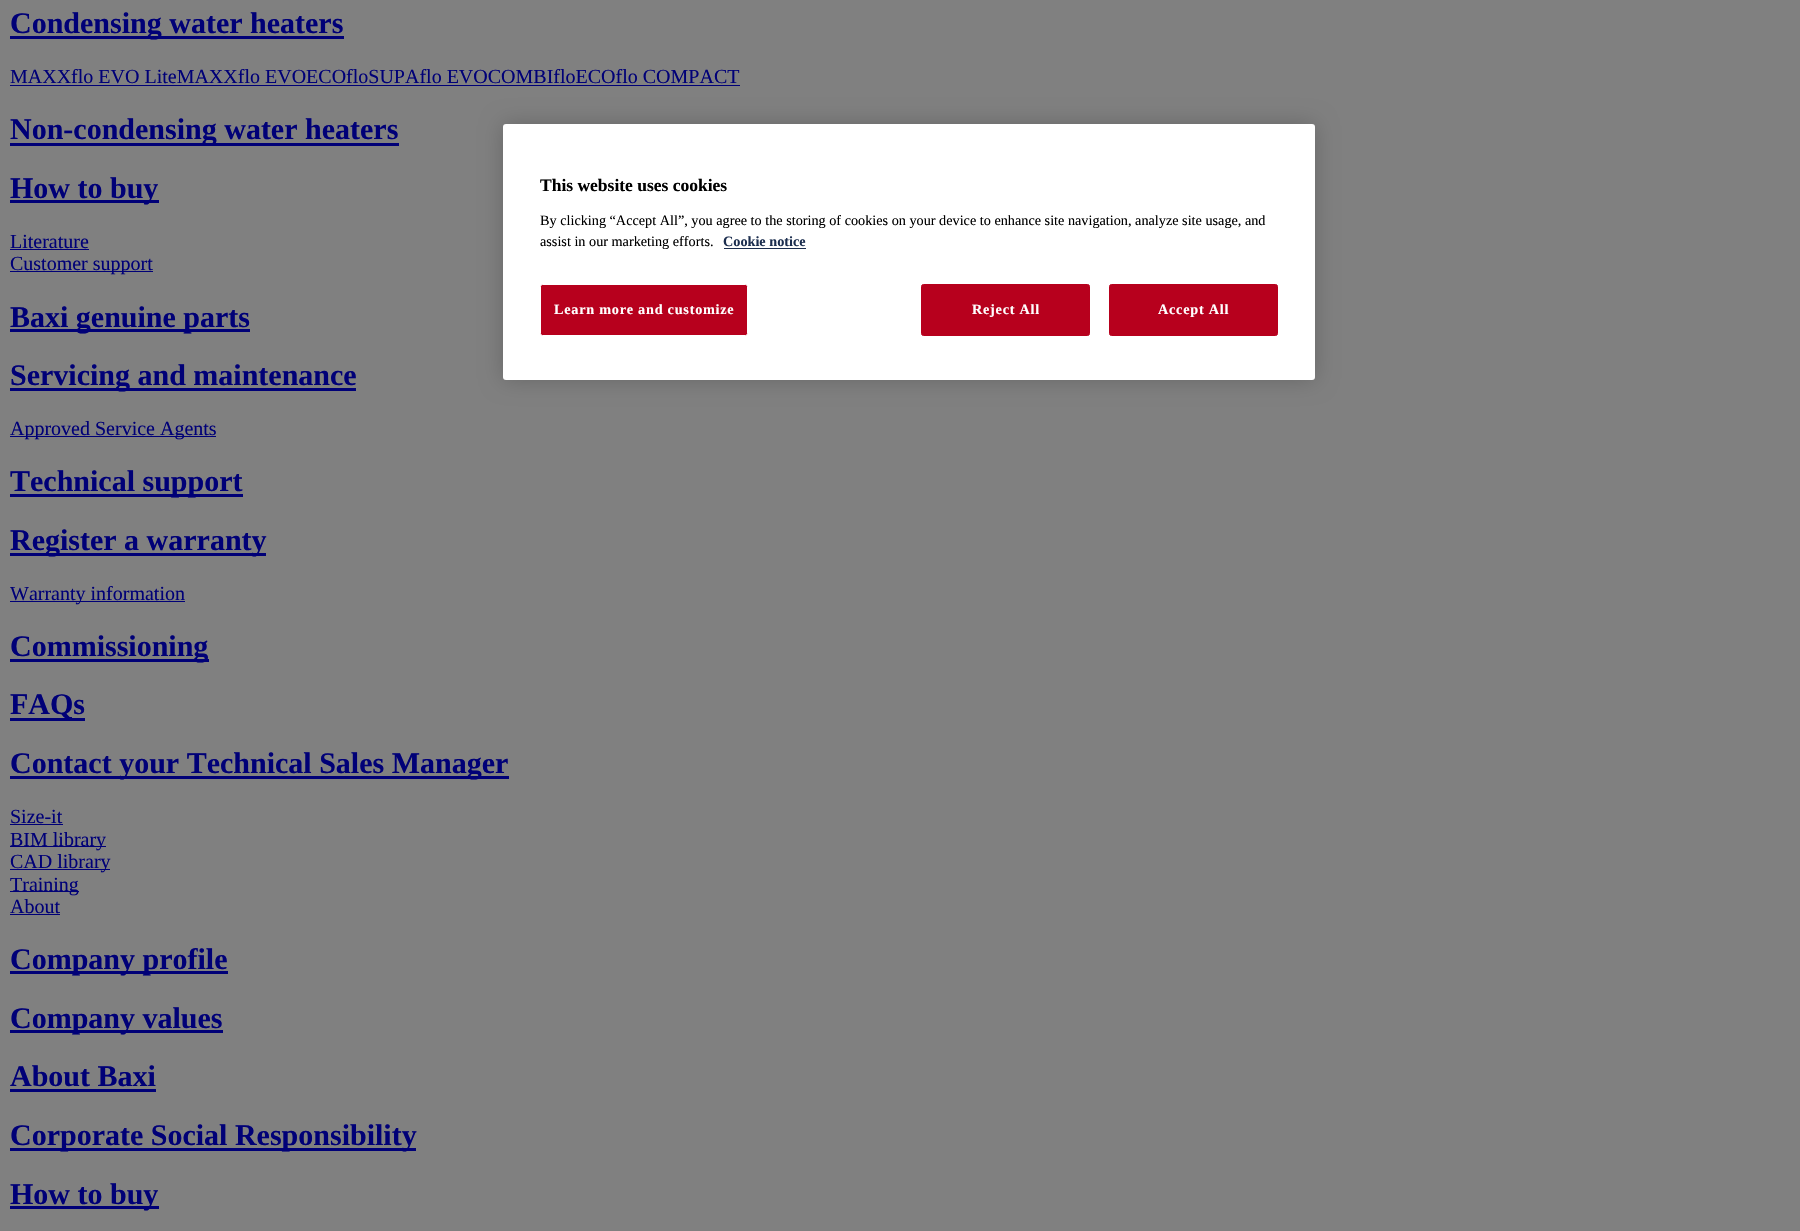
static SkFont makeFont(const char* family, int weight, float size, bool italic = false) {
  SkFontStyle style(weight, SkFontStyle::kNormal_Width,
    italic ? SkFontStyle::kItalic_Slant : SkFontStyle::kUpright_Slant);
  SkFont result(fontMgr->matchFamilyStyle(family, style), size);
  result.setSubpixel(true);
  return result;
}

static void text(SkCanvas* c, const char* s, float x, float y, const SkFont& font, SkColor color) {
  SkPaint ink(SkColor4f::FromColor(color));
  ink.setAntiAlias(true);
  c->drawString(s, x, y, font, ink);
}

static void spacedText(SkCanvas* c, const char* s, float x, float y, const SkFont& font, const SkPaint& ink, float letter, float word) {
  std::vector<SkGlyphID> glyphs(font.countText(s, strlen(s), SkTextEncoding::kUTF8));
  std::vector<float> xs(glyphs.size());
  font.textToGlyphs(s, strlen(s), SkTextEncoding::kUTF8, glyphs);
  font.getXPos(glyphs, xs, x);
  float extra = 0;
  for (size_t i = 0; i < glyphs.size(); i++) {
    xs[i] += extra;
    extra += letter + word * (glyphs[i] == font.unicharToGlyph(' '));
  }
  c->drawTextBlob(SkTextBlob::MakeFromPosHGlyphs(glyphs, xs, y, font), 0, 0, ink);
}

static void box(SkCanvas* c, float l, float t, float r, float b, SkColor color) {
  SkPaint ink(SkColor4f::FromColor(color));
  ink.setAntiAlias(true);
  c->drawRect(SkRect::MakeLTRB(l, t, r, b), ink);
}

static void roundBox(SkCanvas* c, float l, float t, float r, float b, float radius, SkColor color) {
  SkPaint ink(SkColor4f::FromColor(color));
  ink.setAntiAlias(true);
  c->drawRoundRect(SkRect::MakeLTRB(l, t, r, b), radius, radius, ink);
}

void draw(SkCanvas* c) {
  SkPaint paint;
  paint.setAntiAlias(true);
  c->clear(0xff808080);
  box(c, 10, 36, 344, 39, 0xff000077);
  SkFont face1 = makeFont("Liberation Serif", 700, 30);
  text(c, "Condensing water heaters", 10, 33, face1, 0xff000077);
  SkFont face2 = makeFont("Liberation Serif", 400, 20);
  text(c, "MAXXflo EVO LiteMAXXflo EVOECOfloSUPAflo EVOCOMBIfloECOflo COMPACT", 10, 83, face2, 0xff000077);
  box(c, 10, 85, 740, 86, 0xff000077);
  box(c, 10, 143, 399, 146, 0xff000077);
  text(c, "Non-condensing water heaters", 10, 139, face1, 0xff000077);
  box(c, 10, 200, 159, 203, 0xff000077);
  text(c, "How to buy", 10, 198, face1, 0xff000077);
  text(c, "Literature", 10, 248, face2, 0xff000077);
  box(c, 10, 249, 89, 250, 0xff000077);
  box(c, 10, 271, 153, 272, 0xff000077);
  text(c, "Customer support", 10, 270, face2, 0xff000077);
  box(c, 10, 329, 250, 332, 0xff000077);
  text(c, "Baxi genuine parts", 10, 327, face1, 0xff000077);
  box(c, 10, 388, 356, 391, 0xff000077);
  text(c, "Servicing and maintenance", 10, 385, face1, 0xff000077);
  box(c, 10, 436, 216, 437, 0xff000077);
  text(c, "Approved Service Agents", 10, 435, face2, 0xff000077);
  box(c, 10, 494, 243, 497, 0xff000077);
  text(c, "Technical support", 10, 491, face1, 0xff000077);
  box(c, 10, 553, 266, 556, 0xff000077);
  text(c, "Register a warranty", 10, 550, face1, 0xff000077);
  box(c, 10, 601, 185, 602, 0xff000077);
  text(c, "Warranty information", 10, 600, face2, 0xff000077);
  box(c, 10, 659, 209, 662, 0xff000077);
  text(c, "Commissioning", 10, 656, face1, 0xff000077);
  box(c, 10, 718, 85, 721, 0xff000077);
  text(c, "FAQs", 10, 714, face1, 0xff000077);
  box(c, 10, 776, 509, 779, 0xff000077);
  text(c, "Contact your Technical Sales Manager", 10, 773, face1, 0xff000077);
  text(c, "Size-it", 10, 823, face2, 0xff000077);
  box(c, 10, 824, 63, 825, 0xff000077);
  box(c, 10, 846, 106, 847, 0xff000077);
  text(c, "BIM library", 10, 846, face2, 0xff000077);
  box(c, 10, 869, 110, 870, 0xff000077);
  text(c, "CAD library", 10, 868, face2, 0xff000077);
  box(c, 10, 891, 79, 892, 0xff000077);
  text(c, "Training", 10, 891, face2, 0xff000077);
  text(c, "About", 10, 913, face2, 0xff000077);
  box(c, 10, 914, 60, 915, 0xff000077);
  box(c, 10, 971, 228, 974, 0xff000077);
  text(c, "Company profile", 10, 969, face1, 0xff000077);
  box(c, 10, 1030, 223, 1033, 0xff000077);
  text(c, "Company values", 10, 1028, face1, 0xff000077);
  text(c, "About Baxi", 10, 1086, face1, 0xff000077);
  box(c, 10, 1089, 156, 1092, 0xff000077);
  box(c, 10, 1148, 416, 1151, 0xff000077);
  text(c, "Corporate Social Responsibility", 10, 1145, face1, 0xff000077);
  box(c, 10, 1206, 159, 1209, 0xff000077);
  text(c, "How to buy", 10, 1204, face1, 0xff000077);
  paint.setColor(0x33000000);
  paint.setMaskFilter(SkMaskFilter::MakeBlur(kNormal_SkBlurStyle, 11));
  c->drawRoundRect(SkRect::MakeLTRB(503, 124, 1315, 380), 3, 3, paint);
  paint.setMaskFilter(nullptr);
  roundBox(c, 503, 124, 1315, 380, 3, 0xffffffff);
  SkFont face3 = makeFont("Liberation Serif", 700, 17.5f);
  text(c, "This website uses cookies", 540, 191, face3, 0xff000000);
  SkFont face4 = makeFont("Liberation Serif", 400, 14.23f);
  text(c, "By clicking “Accept All”, you agree to the storing of cookies on your device to enhance site navigation, analyze site usage, and", 540, 225, face4, 0xff000000);
  text(c, "assist in our marketing efforts.", 540, 246, face4, 0xff000000);
  SkFont face5 = makeFont("Liberation Serif", 700, 14.23f);
  text(c, "Cookie notice", 723, 246, face5, 0xff1c2e4f);
  box(c, 724, 248, 806, 249, 0xff1c2e4f);
  paint.setColor(0xffb7001d);
  c->drawRoundRect(SkRect::MakeLTRB(540.5f, 284.5f, 747.5f, 335.5f), 2, 2, paint);
  paint.setStyle(SkPaint::kStroke_Style);
  paint.setStrokeWidth(1);
  paint.setColor(0xffffffff);
  c->drawRoundRect(SkRect::MakeLTRB(540.5f, 284.5f, 747.5f, 335.5f), 2, 2, paint);
  paint.setStyle(SkPaint::kFill_Style);
  spacedText(c, "Learn more and customize", 554, 314, face5, paint, 0.75f, 0);
  paint.setColor(0xffb7001d);
  c->drawRoundRect(SkRect::MakeLTRB(921.5f, 284.5f, 1089.5f, 335.5f), 2, 2, paint);
  paint.setStyle(SkPaint::kStroke_Style);
  c->drawRoundRect(SkRect::MakeLTRB(921.5f, 284.5f, 1089.5f, 335.5f), 2, 2, paint);
  paint.setStyle(SkPaint::kFill_Style);
  paint.setColor(0xffffffff);
  spacedText(c, "Reject All", 972, 314, face5, paint, 0.75f, 0);
  paint.setColor(0xffb7001d);
  c->drawRoundRect(SkRect::MakeLTRB(1109.5f, 284.5f, 1277.5f, 335.5f), 2, 2, paint);
  paint.setStyle(SkPaint::kStroke_Style);
  c->drawRoundRect(SkRect::MakeLTRB(1109.5f, 284.5f, 1277.5f, 335.5f), 2, 2, paint);
  paint.setStyle(SkPaint::kFill_Style);
  paint.setColor(0xffffffff);
  spacedText(c, "Accept All", 1158, 314, face5, paint, 0.75f, 0);
}
